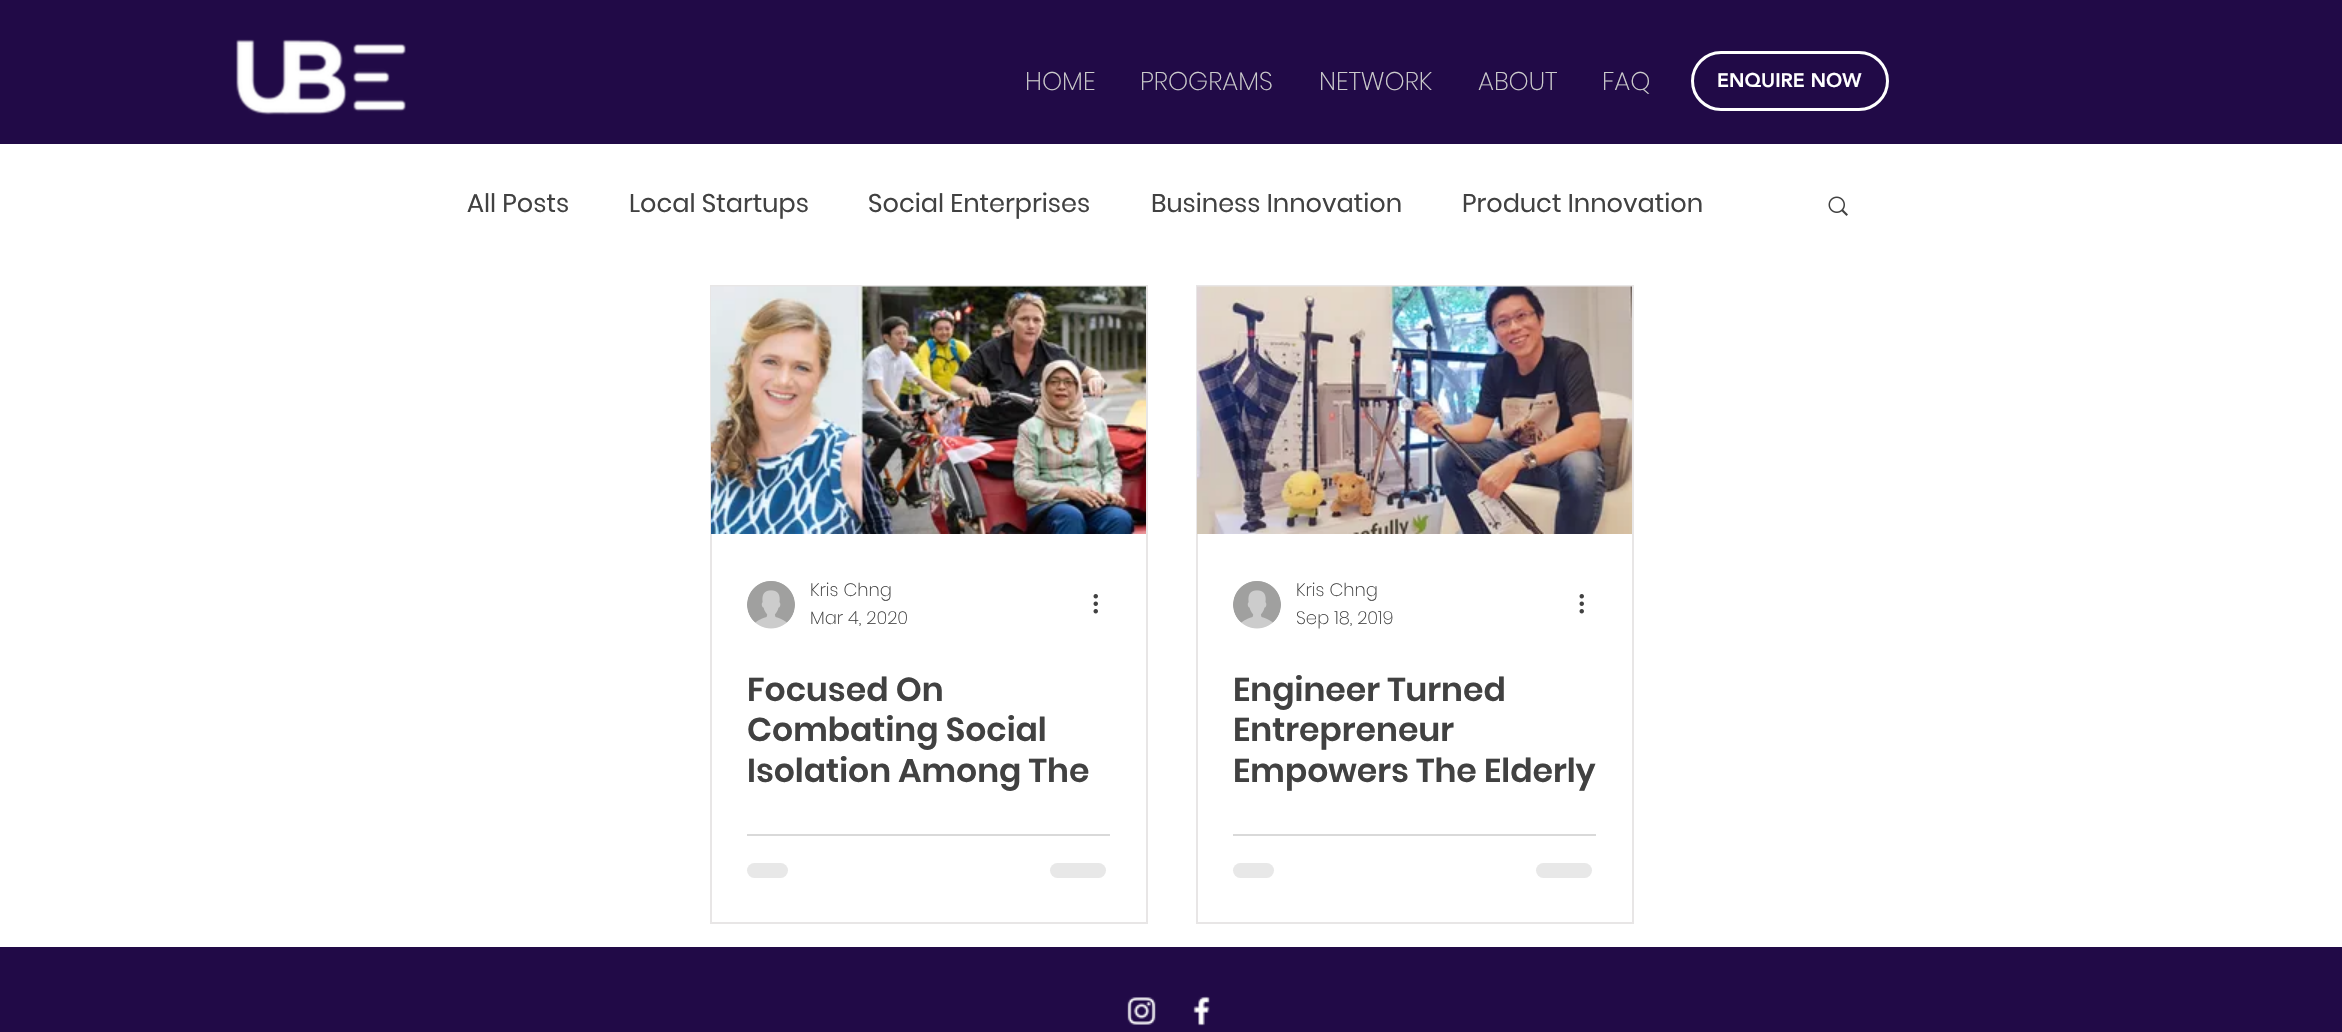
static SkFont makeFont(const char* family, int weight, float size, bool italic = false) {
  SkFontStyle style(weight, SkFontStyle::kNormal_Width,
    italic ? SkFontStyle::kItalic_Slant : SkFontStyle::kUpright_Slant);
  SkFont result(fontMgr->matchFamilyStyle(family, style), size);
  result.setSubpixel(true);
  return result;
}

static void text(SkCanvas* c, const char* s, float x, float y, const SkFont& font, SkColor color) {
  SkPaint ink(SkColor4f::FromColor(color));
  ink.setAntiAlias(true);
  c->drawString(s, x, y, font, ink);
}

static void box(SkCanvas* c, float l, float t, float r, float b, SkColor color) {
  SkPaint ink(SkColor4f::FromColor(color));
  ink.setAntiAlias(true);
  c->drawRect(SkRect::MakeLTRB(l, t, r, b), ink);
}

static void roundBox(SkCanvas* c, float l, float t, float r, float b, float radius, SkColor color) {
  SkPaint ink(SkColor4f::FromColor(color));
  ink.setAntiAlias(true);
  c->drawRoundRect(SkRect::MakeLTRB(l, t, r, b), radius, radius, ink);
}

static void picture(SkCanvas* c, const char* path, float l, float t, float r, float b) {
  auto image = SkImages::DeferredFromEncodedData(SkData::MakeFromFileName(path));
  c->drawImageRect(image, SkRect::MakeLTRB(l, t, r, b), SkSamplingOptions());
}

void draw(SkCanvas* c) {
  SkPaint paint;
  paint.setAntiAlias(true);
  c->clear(0xff210a47);
  picture(c, "img_01.png", 236, 39, 406, 115);
  SkFont face1 = makeFont("Poppins", 200, 25.5f);
  text(c, "HOME", 1025, 90, face1, 0xffcccccc);
  text(c, "PROGRAMS", 1140, 90, face1, 0xffcccccc);
  text(c, "NETWORK", 1319, 90, face1, 0xffcccccc);
  text(c, "ABOUT", 1478, 90, face1, 0xffcccccc);
  text(c, "FAQ", 1602, 90, face1, 0xffcccccc);
  paint.setStyle(SkPaint::kStroke_Style);
  paint.setStrokeWidth(3);
  paint.setColor(0xffffffff);
  c->drawRoundRect(SkRect::MakeLTRB(1692.5f, 52.5f, 1887.5f, 109.5f), 28.5f, 28.5f, paint);
  SkFont face2 = makeFont("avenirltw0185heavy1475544", 900, 19.5f);
  text(c, "ENQUIRE NOW", 1717, 87, face2, 0xffffffff);
  box(c, 0, 144, 2342, 947, 0xffffffff);
  SkFont face3 = makeFont("Poppins", 400, 25.5f);
  text(c, "All Posts", 467, 212, face3, 0xff414141);
  text(c, "Local Startups", 629, 212, face3, 0xff414141);
  text(c, "Social Enterprises", 868, 212, face3, 0xff414141);
  text(c, "Business Innovation", 1151, 212, face3, 0xff414141);
  text(c, "Product Innovation", 1462, 212, face3, 0xff414141);
  picture(c, "img_02.png", 1828, 196, 1848, 216);
  paint.setStrokeWidth(2);
  paint.setColor(0xffe8e6e6);
  c->drawRect(SkRect::MakeLTRB(711, 286, 1147, 923), paint);
  picture(c, "img_03.png", 711, 286, 1146, 534);
  picture(c, "img_04.png", 747, 581, 795, 629);
  SkFont face4 = makeFont("Poppins", 200, 18);
  text(c, "Kris Chng", 810, 596, face4, 0xff414141);
  text(c, "Mar 4, 2020", 810, 624, face4, 0xff414141);
  picture(c, "img_05.png", 1093, 594, 1098, 614);
  SkFont face5 = makeFont("Poppins", 600, 33);
  text(c, "Focused On", 747, 701, face5, 0xff414141);
  text(c, "Combating Social", 747, 741, face5, 0xff414141);
  text(c, "Isolation Among The", 747, 782, face5, 0xff414141);
  box(c, 747, 834, 1110, 836, 0xffd9d9d9);
  roundBox(c, 747, 863, 788, 878, 7.5f, 0xffe8e8e8);
  roundBox(c, 1050, 863, 1106, 878, 7.5f, 0xffe8e8e8);
  c->drawRect(SkRect::MakeLTRB(1197, 286, 1633, 923), paint);
  picture(c, "img_06.png", 1197, 286, 1632, 534);
  picture(c, "img_04.png", 1233, 581, 1281, 629);
  text(c, "Kris Chng", 1296, 596, face4, 0xff414141);
  text(c, "Sep 18, 2019", 1296, 624, face4, 0xff414141);
  picture(c, "img_05.png", 1579, 594, 1584, 614);
  text(c, "Engineer Turned", 1233, 701, face5, 0xff414141);
  text(c, "Entrepreneur", 1233, 741, face5, 0xff414141);
  text(c, "Empowers The Elderly", 1233, 782, face5, 0xff414141);
  box(c, 1233, 834, 1596, 836, 0xffd9d9d9);
  roundBox(c, 1233, 863, 1274, 878, 7.5f, 0xffe8e8e8);
  roundBox(c, 1536, 863, 1592, 878, 7.5f, 0xffe8e8e8);
  picture(c, "img_07.png", 1127, 997, 1156, 1025);
  picture(c, "img_08.png", 1193, 996, 1210, 1026);
}
